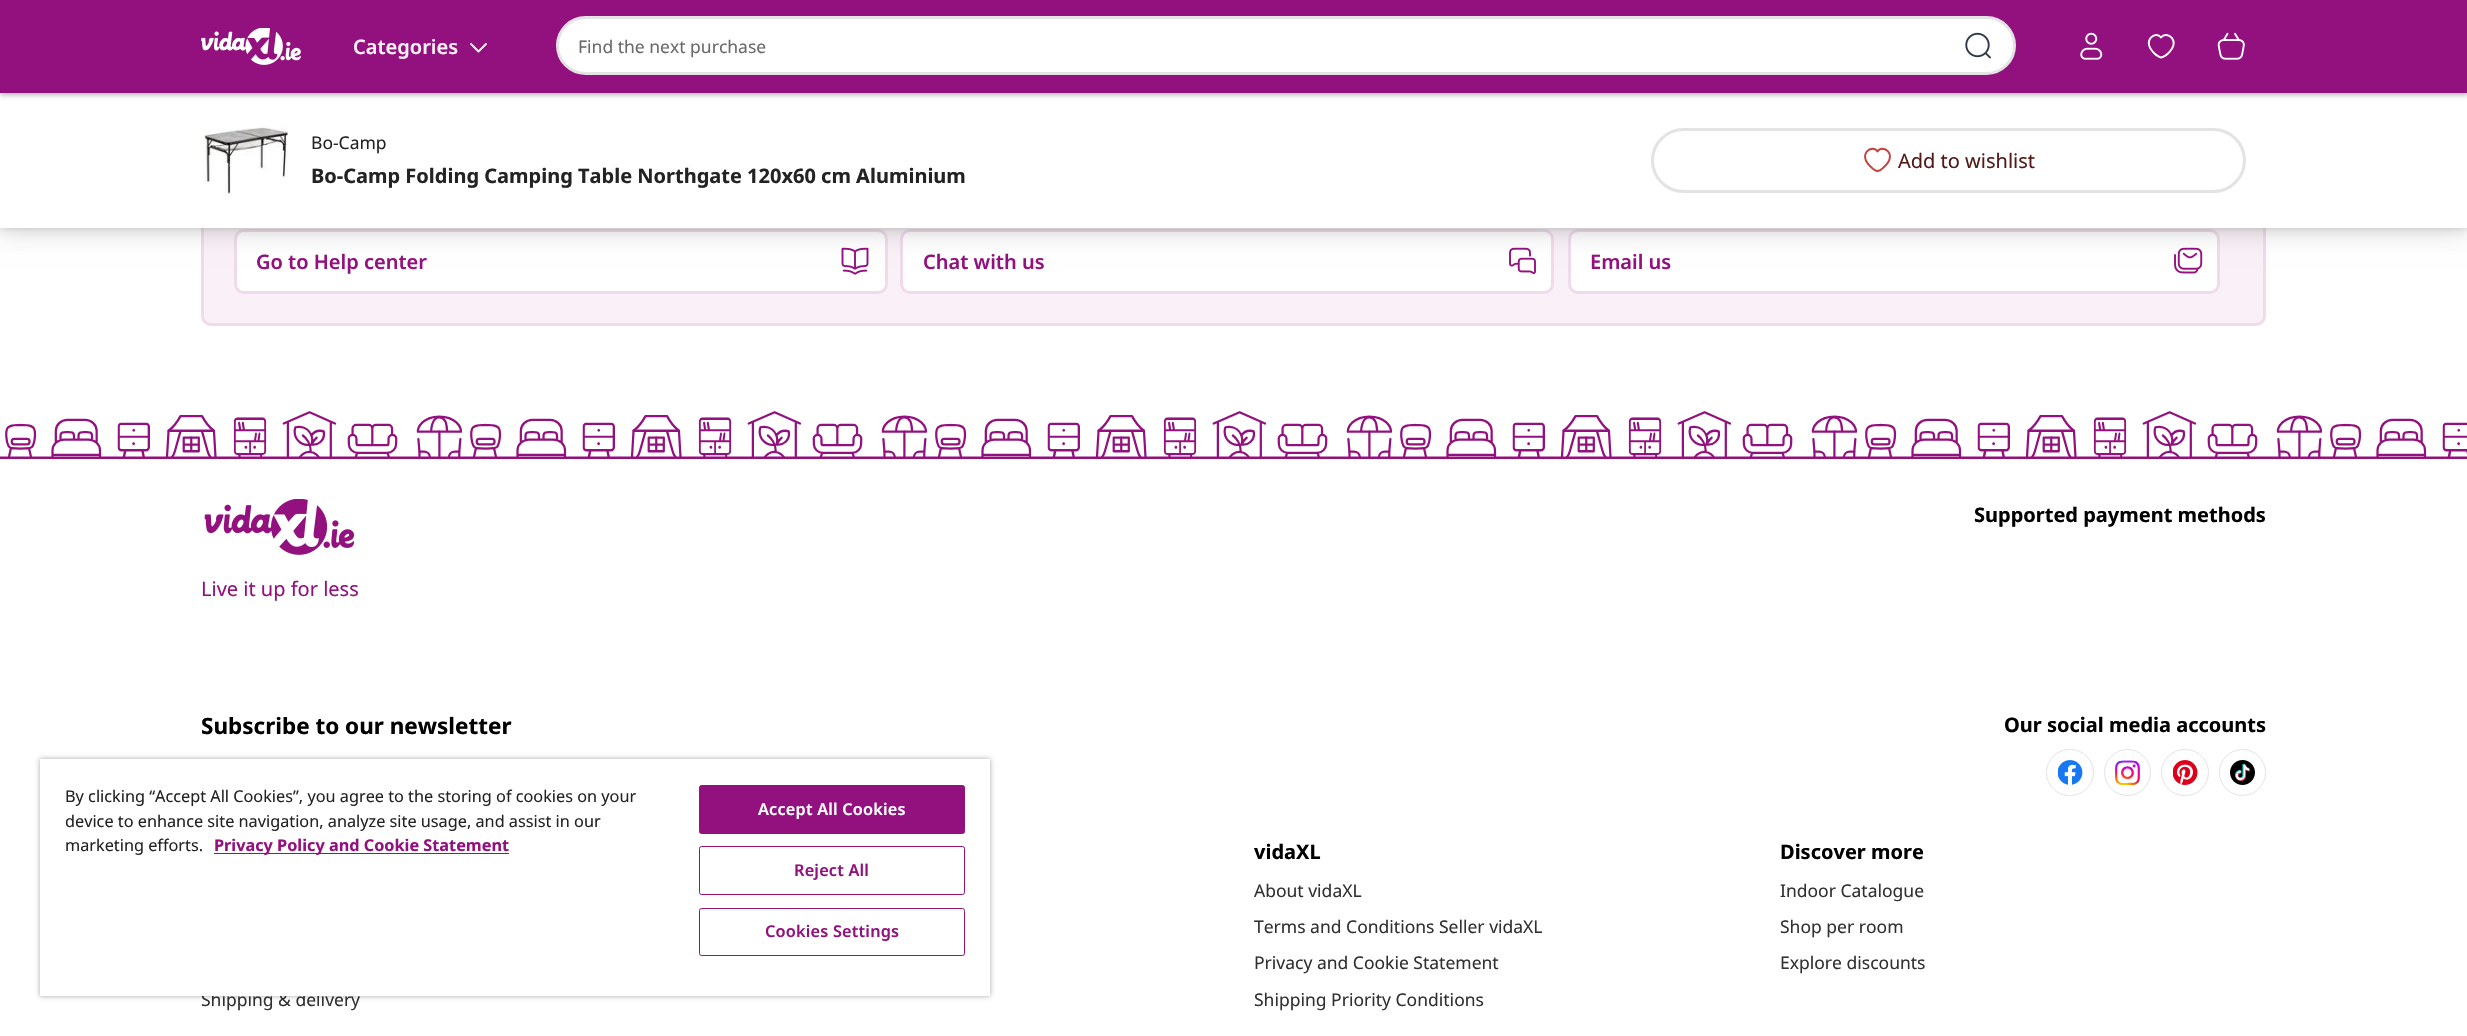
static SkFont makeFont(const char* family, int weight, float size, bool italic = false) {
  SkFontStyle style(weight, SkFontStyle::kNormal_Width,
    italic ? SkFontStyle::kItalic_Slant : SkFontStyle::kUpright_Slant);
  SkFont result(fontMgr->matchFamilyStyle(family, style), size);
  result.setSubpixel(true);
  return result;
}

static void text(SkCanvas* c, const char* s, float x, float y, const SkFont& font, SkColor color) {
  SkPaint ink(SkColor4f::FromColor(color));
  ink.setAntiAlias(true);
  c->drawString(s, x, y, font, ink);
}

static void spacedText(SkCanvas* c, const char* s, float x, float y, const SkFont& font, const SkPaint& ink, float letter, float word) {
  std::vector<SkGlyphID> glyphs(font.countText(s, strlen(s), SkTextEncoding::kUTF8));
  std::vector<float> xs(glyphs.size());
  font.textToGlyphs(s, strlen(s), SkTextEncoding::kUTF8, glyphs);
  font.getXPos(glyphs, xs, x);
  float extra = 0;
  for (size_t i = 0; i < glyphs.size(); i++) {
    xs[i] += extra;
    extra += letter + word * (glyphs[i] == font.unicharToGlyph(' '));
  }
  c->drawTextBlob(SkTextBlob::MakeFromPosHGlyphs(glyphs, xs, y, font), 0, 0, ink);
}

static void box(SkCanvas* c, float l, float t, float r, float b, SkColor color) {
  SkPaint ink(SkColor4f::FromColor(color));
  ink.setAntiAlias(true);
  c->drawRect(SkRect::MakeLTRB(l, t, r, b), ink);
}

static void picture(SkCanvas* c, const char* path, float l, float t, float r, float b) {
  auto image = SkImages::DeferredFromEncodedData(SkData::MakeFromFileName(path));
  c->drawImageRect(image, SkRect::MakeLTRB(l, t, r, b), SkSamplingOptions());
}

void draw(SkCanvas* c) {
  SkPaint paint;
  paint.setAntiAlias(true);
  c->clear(0xffffffff);
  paint.setColor(0xfff9f1f7);
  c->drawRoundRect(SkRect::MakeLTRB(202.5f, 151.5f, 2264.5f, 324.5f), 8.5f, 8.5f, paint);
  paint.setStyle(SkPaint::kStroke_Style);
  paint.setStrokeWidth(3);
  paint.setColor(0xffefdbec);
  c->drawRoundRect(SkRect::MakeLTRB(202.5f, 151.5f, 2264.5f, 324.5f), 8.5f, 8.5f, paint);
  paint.setStyle(SkPaint::kFill_Style);
  paint.setColor(0xffffffff);
  c->drawRoundRect(SkRect::MakeLTRB(235.5f, 230.5f, 886.5f, 292.5f), 8.5f, 8.5f, paint);
  paint.setStyle(SkPaint::kStroke_Style);
  paint.setColor(0xffefdbec);
  c->drawRoundRect(SkRect::MakeLTRB(235.5f, 230.5f, 886.5f, 292.5f), 8.5f, 8.5f, paint);
  picture(c, "img_06.png", 841, 247, 869, 275);
  paint.setStyle(SkPaint::kFill_Style);
  paint.setColor(0xffffffff);
  c->drawRoundRect(SkRect::MakeLTRB(901.5f, 230.5f, 1552.5f, 292.5f), 8.5f, 8.5f, paint);
  paint.setStyle(SkPaint::kStroke_Style);
  paint.setColor(0xffefdbec);
  c->drawRoundRect(SkRect::MakeLTRB(901.5f, 230.5f, 1552.5f, 292.5f), 8.5f, 8.5f, paint);
  picture(c, "img_07.png", 1509, 247, 1536, 274);
  paint.setStyle(SkPaint::kFill_Style);
  paint.setColor(0xffffffff);
  c->drawRoundRect(SkRect::MakeLTRB(1569.5f, 230.5f, 2218.5f, 292.5f), 8.5f, 8.5f, paint);
  paint.setStyle(SkPaint::kStroke_Style);
  paint.setColor(0xffefdbec);
  c->drawRoundRect(SkRect::MakeLTRB(1569.5f, 230.5f, 2218.5f, 292.5f), 8.5f, 8.5f, paint);
  picture(c, "img_08.png", 2174, 247, 2203, 274);
  paint.setStyle(SkPaint::kFill_Style);
  paint.setColor(0x1a000000);
  paint.setMaskFilter(SkMaskFilter::MakeBlur(kNormal_SkBlurStyle, 12.5f));
  c->drawRect(SkRect::MakeLTRB(0, 98, 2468, 233), paint);
  paint.setMaskFilter(nullptr);
  paint.setMaskFilter(SkMaskFilter::MakeBlur(kNormal_SkBlurStyle, 2.5f));
  c->drawRect(SkRect::MakeLTRB(0, 94, 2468, 229), paint);
  paint.setMaskFilter(nullptr);
  paint.setColor(0x0d000000);
  paint.setMaskFilter(SkMaskFilter::MakeBlur(kNormal_SkBlurStyle, 6));
  c->drawRect(SkRect::MakeLTRB(0, 98, 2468, 233), paint);
  paint.setMaskFilter(nullptr);
  box(c, 0, 93, 2467, 228, 0xffffffff);
  paint.setColor(0x59232323);
  paint.setMaskFilter(SkMaskFilter::MakeBlur(kNormal_SkBlurStyle, 2.5f));
  c->drawRect(SkRect::MakeLTRB(0, 3, 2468, 95), paint);
  paint.setMaskFilter(nullptr);
  box(c, 0, 0, 2467, 93, 0xff93117e);
  picture(c, "img_01.png", 201, 28, 301, 65);
  SkFont face1 = makeFont("Noto Sans", 600, 20);
  text(c, "Categories", 353, 54, face1, 0xfff9f1f7);
  paint.setStyle(SkPaint::kStroke_Style);
  paint.setStrokeWidth(1.9f);
  paint.setStrokeCap(SkPaint::kRound_Cap);
  paint.setStrokeJoin(SkPaint::kRound_Join);
  paint.setColor(0xfff9f1f7);
  c->drawPath(SkPathBuilder().moveTo(486, 44).lineTo(478.5f, 51.5f).lineTo(471, 44).detach(), paint);
  paint.setStyle(SkPaint::kFill_Style);
  paint.setColor(0xffffffff);
  c->drawRoundRect(SkRect::MakeLTRB(557.5f, 17.5f, 2014.5f, 73.5f), 28, 28, paint);
  paint.setStyle(SkPaint::kStroke_Style);
  paint.setStrokeWidth(3);
  paint.setStrokeCap(SkPaint::kButt_Cap);
  paint.setStrokeJoin(SkPaint::kMiter_Join);
  paint.setColor(0xffe3e3e3);
  c->drawRoundRect(SkRect::MakeLTRB(557.5f, 17.5f, 2014.5f, 73.5f), 28, 28, paint);
  SkFont face2 = makeFont("Noto Sans", 400, 17.5f);
  text(c, "Find the next purchase", 578, 53, face2, 0xff6a6a6a);
  picture(c, "img_02.png", 1965, 32, 1991, 59);
  picture(c, "img_03.png", 2080, 32, 2103, 60);
  paint.setStrokeWidth(1.9f);
  paint.setStrokeCap(SkPaint::kRound_Cap);
  paint.setStrokeJoin(SkPaint::kRound_Join);
  paint.setColor(0xffffffff);
  c->drawPath(SkPathBuilder().moveTo(2161, 57.5f).cubicTo(2163, 57.5f, 2167, 54.5f, 2168, 53.5f).cubicTo(2182, 40.5f, 2166.5f, 30, 2161, 37.5f).cubicTo(2156, 30, 2140.5f, 40.5f, 2154.5f, 53.5f).cubicTo(2155.5f, 54.5f, 2159.5f, 57.5f, 2161, 57.5f).close().detach(), paint);
  picture(c, "img_04.png", 2217, 32, 2245, 60);
  picture(c, "img_05.png", 201, 127, 288, 198);
  text(c, "Bo-Camp", 311, 149, face2, 0xff232323);
  SkFont face3 = makeFont("Noto Sans", 700, 20);
  text(c, "Bo-Camp Folding Camping Table Northgate 120x60 cm Aluminium", 311, 183, face3, 0xff232323);
  paint.setStrokeWidth(3);
  paint.setStrokeCap(SkPaint::kButt_Cap);
  paint.setStrokeJoin(SkPaint::kMiter_Join);
  paint.setColor(0xffe3e3e3);
  c->drawRoundRect(SkRect::MakeLTRB(1652.5f, 129.5f, 2244.5f, 191.5f), 31, 31, paint);
  paint.setStrokeWidth(1.9f);
  paint.setStrokeCap(SkPaint::kRound_Cap);
  paint.setStrokeJoin(SkPaint::kRound_Join);
  paint.setColor(0xffc83f3d);
  c->drawPath(SkPathBuilder().moveTo(1877.5f, 171).cubicTo(1879.5f, 171, 1883, 168, 1884, 167).cubicTo(1898.5f, 154, 1882.5f, 143.5f, 1877.5f, 151.5f).cubicTo(1872.5f, 143.5f, 1856.5f, 154, 1871, 167).cubicTo(1872, 168, 1875.5f, 171, 1877.5f, 171).close().detach(), paint);
  SkFont face4 = makeFont("Noto Sans", 400, 20);
  text(c, "Add to wishlist", 1898, 168, face4, 0xff541a1a);
  text(c, "Go to Help center", 256, 269, face1, 0xff93117e);
  text(c, "Chat with us", 923, 269, face1, 0xff93117e);
  text(c, "Email us", 1590, 269, face1, 0xff93117e);
  picture(c, "img_09.png", 0, 411, 2467, 459);
  text(c, "Supported payment methods", 1974, 522, face3, 0xff000000);
  picture(c, "img_10.png", 204, 499, 355, 555);
  text(c, "Live it up for less", 201, 596, face4, 0xff93117e);
  SkFont face5 = makeFont("Noto Sans", 700, 22.5f);
  text(c, "Subscribe to our newsletter", 201, 734, face5, 0xff000000);
  text(c, "Our social media accounts", 2004, 732, face3, 0xff000000);
  paint.setStrokeWidth(1);
  paint.setStrokeCap(SkPaint::kButt_Cap);
  paint.setStrokeJoin(SkPaint::kMiter_Join);
  paint.setColor(0xffe3e3e3);
  c->drawRoundRect(SkRect::MakeLTRB(2046.5f, 749.5f, 2093.5f, 795.5f), 23, 23, paint);
  picture(c, "img_11.png", 2058, 760, 2083, 785);
  c->drawCircle(2127.5f, 772.5f, 23, paint);
  picture(c, "img_12.png", 2115, 760, 2140, 785);
  c->drawRoundRect(SkRect::MakeLTRB(2161.5f, 749.5f, 2208.5f, 795.5f), 23, 23, paint);
  picture(c, "img_13.png", 2173, 760, 2198, 785);
  c->drawCircle(2242.5f, 772.5f, 23, paint);
  picture(c, "img_14.png", 2230, 760, 2255, 785);
  text(c, "vidaXL", 1254, 859, face3, 0xff000000);
  text(c, "About vidaXL", 1254, 897, face2, 0xff313131);
  text(c, "Terms and Conditions Seller vidaXL", 1254, 933, face2, 0xff313131);
  text(c, "Privacy and Cookie Statement", 1254, 969, face2, 0xff313131);
  text(c, "Shipping Priority Conditions", 1254, 1006, face2, 0xff313131);
  text(c, "Discover more", 1780, 859, face3, 0xff000000);
  text(c, "Indoor Catalogue", 1780, 897, face2, 0xff313131);
  text(c, "Shop per room", 1780, 933, face2, 0xff313131);
  text(c, "Explore discounts", 1780, 969, face2, 0xff313131);
  text(c, "Shipping & delivery", 201, 1006, face2, 0xff313131);
  paint.setStyle(SkPaint::kFill_Style);
  paint.setColor(0x59000000);
  paint.setMaskFilter(SkMaskFilter::MakeBlur(kNormal_SkBlurStyle, 2.5f));
  c->drawRect(SkRect::MakeLTRB(40, 759, 990, 996), paint);
  paint.setMaskFilter(nullptr);
  box(c, 40, 759, 990, 996, 0xffffffff);
  SkFont face6 = makeFont("Noto Sans", 400, 16.25f);
  text(c, "By clicking “Accept All Cookies”, you agree to the storing of cookies on your", 65, 802, face6, 0xff232323);
  text(c, "device to enhance site navigation, analyze site usage, and assist in our", 65, 827, face6, 0xff232323);
  text(c, "marketing efforts.", 65, 851, face6, 0xff232323);
  box(c, 214, 853, 509, 854, 0xff93117e);
  SkFont face7 = makeFont("Noto Sans", 700, 16.25f);
  text(c, "Privacy Policy and Cookie Statement", 214, 851, face7, 0xff93117e);
  paint.setColor(0xff93117e);
  c->drawRoundRect(SkRect::MakeLTRB(699.5f, 785.5f, 964.5f, 833.5f), 2, 2, paint);
  paint.setStyle(SkPaint::kStroke_Style);
  c->drawRoundRect(SkRect::MakeLTRB(699.5f, 785.5f, 964.5f, 833.5f), 2, 2, paint);
  SkFont face8 = makeFont("Noto Sans", 600, 16.25f);
  paint.setStyle(SkPaint::kFill_Style);
  paint.setColor(0xffffffff);
  spacedText(c, "Accept All Cookies", 758, 815, face8, paint, 0.2f, 0);
  paint.setStyle(SkPaint::kStroke_Style);
  paint.setColor(0xff93117e);
  c->drawRoundRect(SkRect::MakeLTRB(699.5f, 846.5f, 964.5f, 894.5f), 2, 2, paint);
  paint.setStyle(SkPaint::kFill_Style);
  spacedText(c, "Reject All", 794, 876, face8, paint, 0.2f, 0);
  paint.setStyle(SkPaint::kStroke_Style);
  c->drawRoundRect(SkRect::MakeLTRB(699.5f, 908.5f, 964.5f, 955.5f), 2, 2, paint);
  paint.setStyle(SkPaint::kFill_Style);
  spacedText(c, "Cookies Settings", 765, 937, face8, paint, 0.2f, 0);
}
